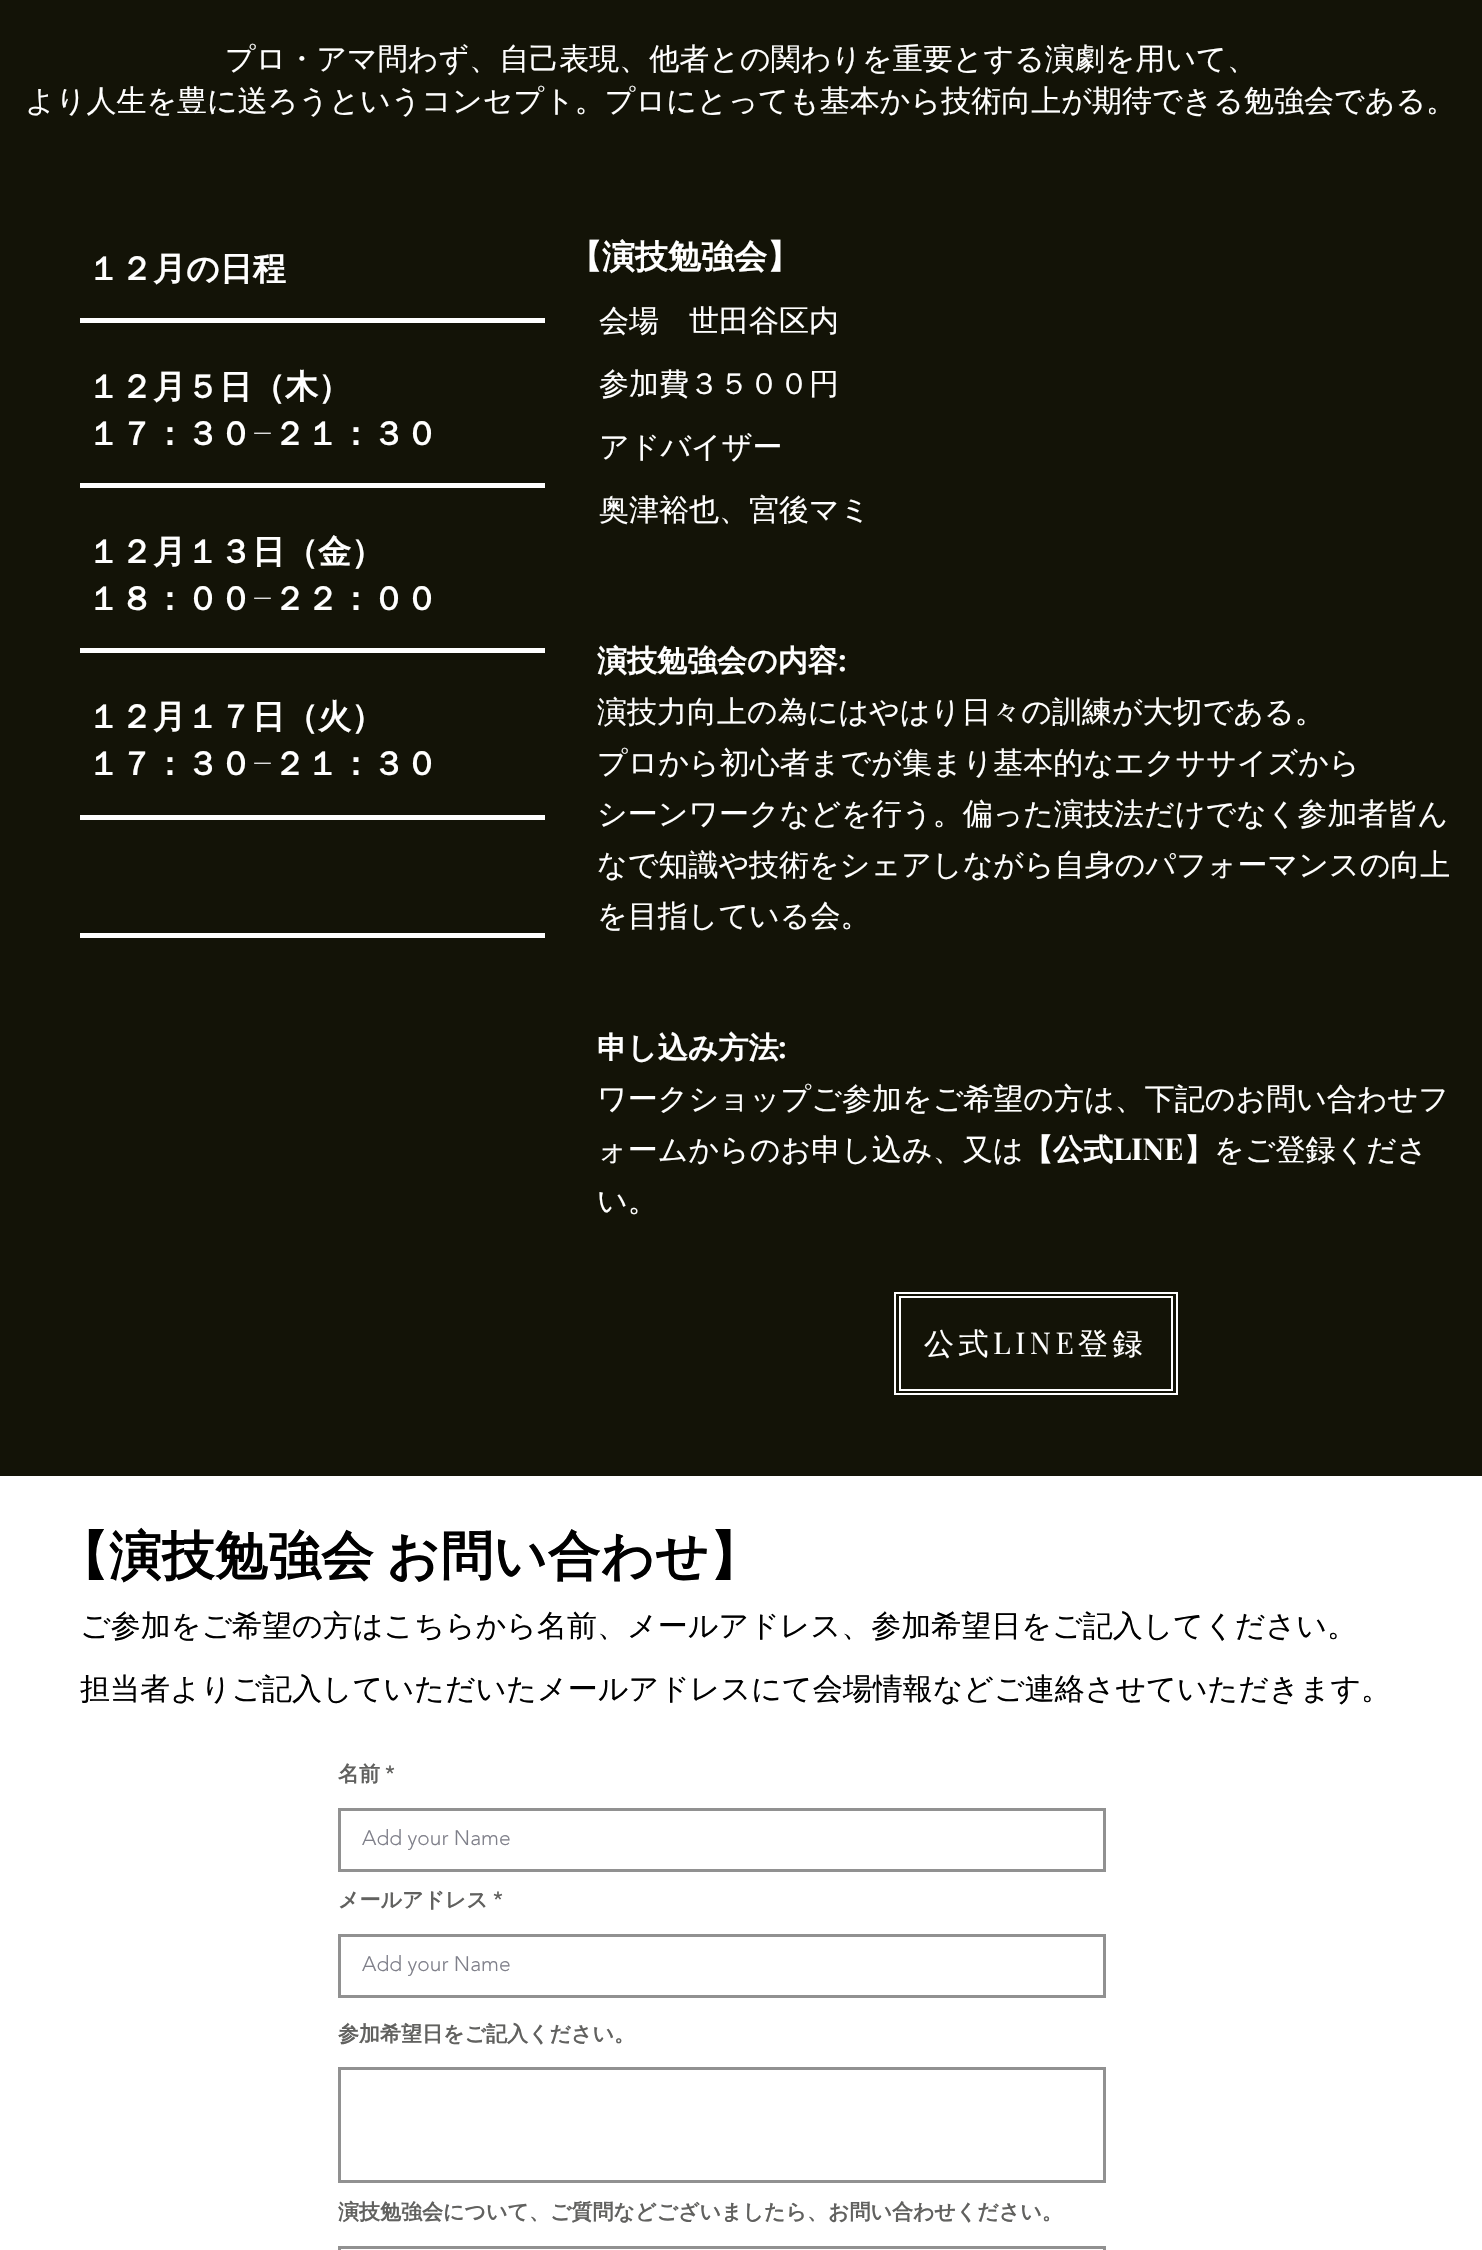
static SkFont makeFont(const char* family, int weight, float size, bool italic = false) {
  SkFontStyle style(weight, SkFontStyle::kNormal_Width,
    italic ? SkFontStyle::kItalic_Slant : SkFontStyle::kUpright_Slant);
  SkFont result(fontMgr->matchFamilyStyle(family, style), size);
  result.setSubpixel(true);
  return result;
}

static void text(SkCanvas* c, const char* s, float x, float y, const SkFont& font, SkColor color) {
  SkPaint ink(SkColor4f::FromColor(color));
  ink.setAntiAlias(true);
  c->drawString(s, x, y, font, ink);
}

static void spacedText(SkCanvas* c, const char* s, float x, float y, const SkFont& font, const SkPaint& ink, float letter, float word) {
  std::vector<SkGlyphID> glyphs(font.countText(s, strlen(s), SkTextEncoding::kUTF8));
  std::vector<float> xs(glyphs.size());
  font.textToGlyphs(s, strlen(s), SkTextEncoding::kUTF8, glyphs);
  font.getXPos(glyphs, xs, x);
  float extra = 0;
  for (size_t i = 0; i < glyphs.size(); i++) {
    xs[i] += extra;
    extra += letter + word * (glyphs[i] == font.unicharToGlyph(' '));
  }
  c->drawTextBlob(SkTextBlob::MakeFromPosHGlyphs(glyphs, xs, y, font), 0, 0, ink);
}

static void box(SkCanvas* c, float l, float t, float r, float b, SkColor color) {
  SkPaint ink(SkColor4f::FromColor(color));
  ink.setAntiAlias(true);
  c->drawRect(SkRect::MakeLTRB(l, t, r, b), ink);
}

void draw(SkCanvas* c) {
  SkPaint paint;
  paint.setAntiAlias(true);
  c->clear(0xff131307);
  SkFont face1 = makeFont("WenQuanYi Zen Hei", 500, 30);
  text(c, "プロ・アマ問わず、自己表現、他者との関わりを重要とする演劇を用いて、", 225, 69, face1, 0xffffffff);
  text(c, "より人生を豊に送ろうというコンセプト。プロにとっても基本から技術向上が期待できる勉強会である。", 25, 111, face1, 0xffffffff);
  SkFont face2 = makeFont("WenQuanYi Zen Hei", 700, 33);
  text(c, "１２月の日程", 87, 280, face2, 0xffffffff);
  box(c, 80, 318, 545, 323, 0xffffffff);
  text(c, "１２月５日（木）", 87, 398, face2, 0xffffffff);
  text(c, "１７：３０", 87, 445, face2, 0xffffffff);
  SkFont face3 = makeFont("Playfair Display", 700, 33);
  text(c, "−", 252, 445, face3, 0xffffffff);
  text(c, "２１：３０", 273, 445, face2, 0xffffffff);
  box(c, 80, 483, 545, 488, 0xffffffff);
  text(c, "１２月１３日（金）", 87, 563, face2, 0xffffffff);
  text(c, "１８：００", 87, 610, face2, 0xffffffff);
  text(c, "−", 252, 610, face3, 0xffffffff);
  text(c, "２２：００", 273, 610, face2, 0xffffffff);
  box(c, 80, 648, 545, 653, 0xffffffff);
  text(c, "１２月１７日（火）", 87, 728, face2, 0xffffffff);
  text(c, "１７：３０", 87, 775, face2, 0xffffffff);
  text(c, "−", 252, 775, face3, 0xffffffff);
  text(c, "２１：３０", 273, 775, face2, 0xffffffff);
  box(c, 80, 815, 545, 820, 0xffffffff);
  box(c, 80, 933, 545, 938, 0xffffffff);
  text(c, "【演技勉強会】", 569, 268, face2, 0xffffffff);
  text(c, "会場　世田谷区内", 599, 331, face1, 0xffffffff);
  text(c, "参加費３５００円", 599, 394, face1, 0xffffffff);
  text(c, "アドバイザー", 599, 457, face1, 0xffffffff);
  text(c, "奥津裕也、宮後マミ", 599, 520, face1, 0xffffffff);
  SkFont face4 = makeFont("WenQuanYi Zen Hei", 700, 30);
  text(c, "演技勉強会の内容", 597, 671, face4, 0xffffffff);
  SkFont face5 = makeFont("Playfair Display", 700, 30);
  text(c, ":", 838, 671, face5, 0xffffffff);
  text(c, "演技力向上の為にはやはり日々の訓練が大切である。", 597, 722, face1, 0xffffffff);
  text(c, "プロから初心者までが集まり基本的なエクササイズから", 597, 773, face1, 0xffffffff);
  text(c, "シーンワークなどを行う。偏った演技法だけでなく参加者皆ん", 597, 824, face1, 0xffffffff);
  text(c, "なで知識や技術をシェアしながら自身のパフォーマンスの向上", 597, 875, face1, 0xffffffff);
  text(c, "を目指している会。", 597, 926, face1, 0xffffffff);
  text(c, "申し込み方法", 597, 1058, face4, 0xffffffff);
  text(c, ":", 778, 1058, face5, 0xffffffff);
  text(c, "ワークショップご参加をご希望の方は、下記のお問い合わせフ", 597, 1109, face1, 0xffffffff);
  text(c, "ォームからのお申し込み、又は", 597, 1160, face1, 0xffffffff);
  text(c, "【公式", 1023, 1160, face4, 0xffffffff);
  text(c, "LINE", 1113, 1160, face5, 0xffffffff);
  text(c, "】", 1184, 1160, face4, 0xffffffff);
  text(c, "をご登録くださ", 1214, 1160, face1, 0xffffffff);
  text(c, "い。", 597, 1211, face1, 0xffffffff);
  paint.setStyle(SkPaint::kStroke_Style);
  paint.setStrokeWidth(2);
  paint.setColor(0xffffffff);
  c->drawRect(SkRect::MakeLTRB(895, 1293, 1177, 1394), paint);
  c->drawRect(SkRect::MakeLTRB(900, 1297, 1172, 1390), paint);
  paint.setStyle(SkPaint::kFill_Style);
  spacedText(c, "公式", 924, 1354, face1, paint, 4.5f, 0);
  SkFont face6 = makeFont("Playfair Display", 400, 30);
  spacedText(c, "LINE", 993, 1354, face6, paint, 4.5f, 0);
  spacedText(c, "登録", 1078, 1354, face1, paint, 4.5f, 0);
  box(c, 0, 1476, 1482, 2250, 0xffffffff);
  SkFont face7 = makeFont("WenQuanYi Zen Hei", 700, 52.5f);
  paint.setColor(0xff000000);
  spacedText(c, "【演技勉強会 お問い合わせ】", 56, 1574, face7, paint, 0.5f, -4);
  text(c, "ご参加をご希望の方はこちらから名前、メールアドレス、参加希望日をご記入してください。", 80, 1636, face1, 0xff000000);
  text(c, "担当者よりご記入していただいたメールアドレスにて会場情報などご連絡させていただきます。", 80, 1699, face1, 0xff000000);
  SkFont face8 = makeFont("WenQuanYi Zen Hei", 700, 21);
  text(c, "名前", 338, 1781, face8, 0xff61615f);
  SkFont face9 = makeFont("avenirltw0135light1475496", 700, 21);
  text(c, "*", 385, 1781, face9, 0xff61615f);
  paint.setStyle(SkPaint::kStroke_Style);
  paint.setStrokeWidth(3);
  paint.setColor(0xff919191);
  c->drawRect(SkRect::MakeLTRB(339.5f, 1809.5f, 1104.5f, 1870.5f), paint);
  SkFont face10 = makeFont("avenirltw0135light1475496", 300, 21);
  text(c, "Add your Name", 362, 1845, face10, 0xff7f808a);
  text(c, "メールアドレス", 338, 1907, face8, 0xff61615f);
  text(c, "*", 493, 1907, face9, 0xff61615f);
  c->drawRect(SkRect::MakeLTRB(339.5f, 1935.5f, 1104.5f, 1996.5f), paint);
  text(c, "Add your Name", 362, 1971, face10, 0xff7f808a);
  text(c, "参加希望日をご記入ください。", 338, 2041, face8, 0xff61615f);
  c->drawRect(SkRect::MakeLTRB(339.5f, 2068.5f, 1104.5f, 2181.5f), paint);
  text(c, "演技勉強会について、ご質問などございましたら、お問い合わせください。", 338, 2219, face8, 0xff61615f);
  c->drawRect(SkRect::MakeLTRB(339.5f, 2247.5f, 1104.5f, 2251.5f), paint);
}
